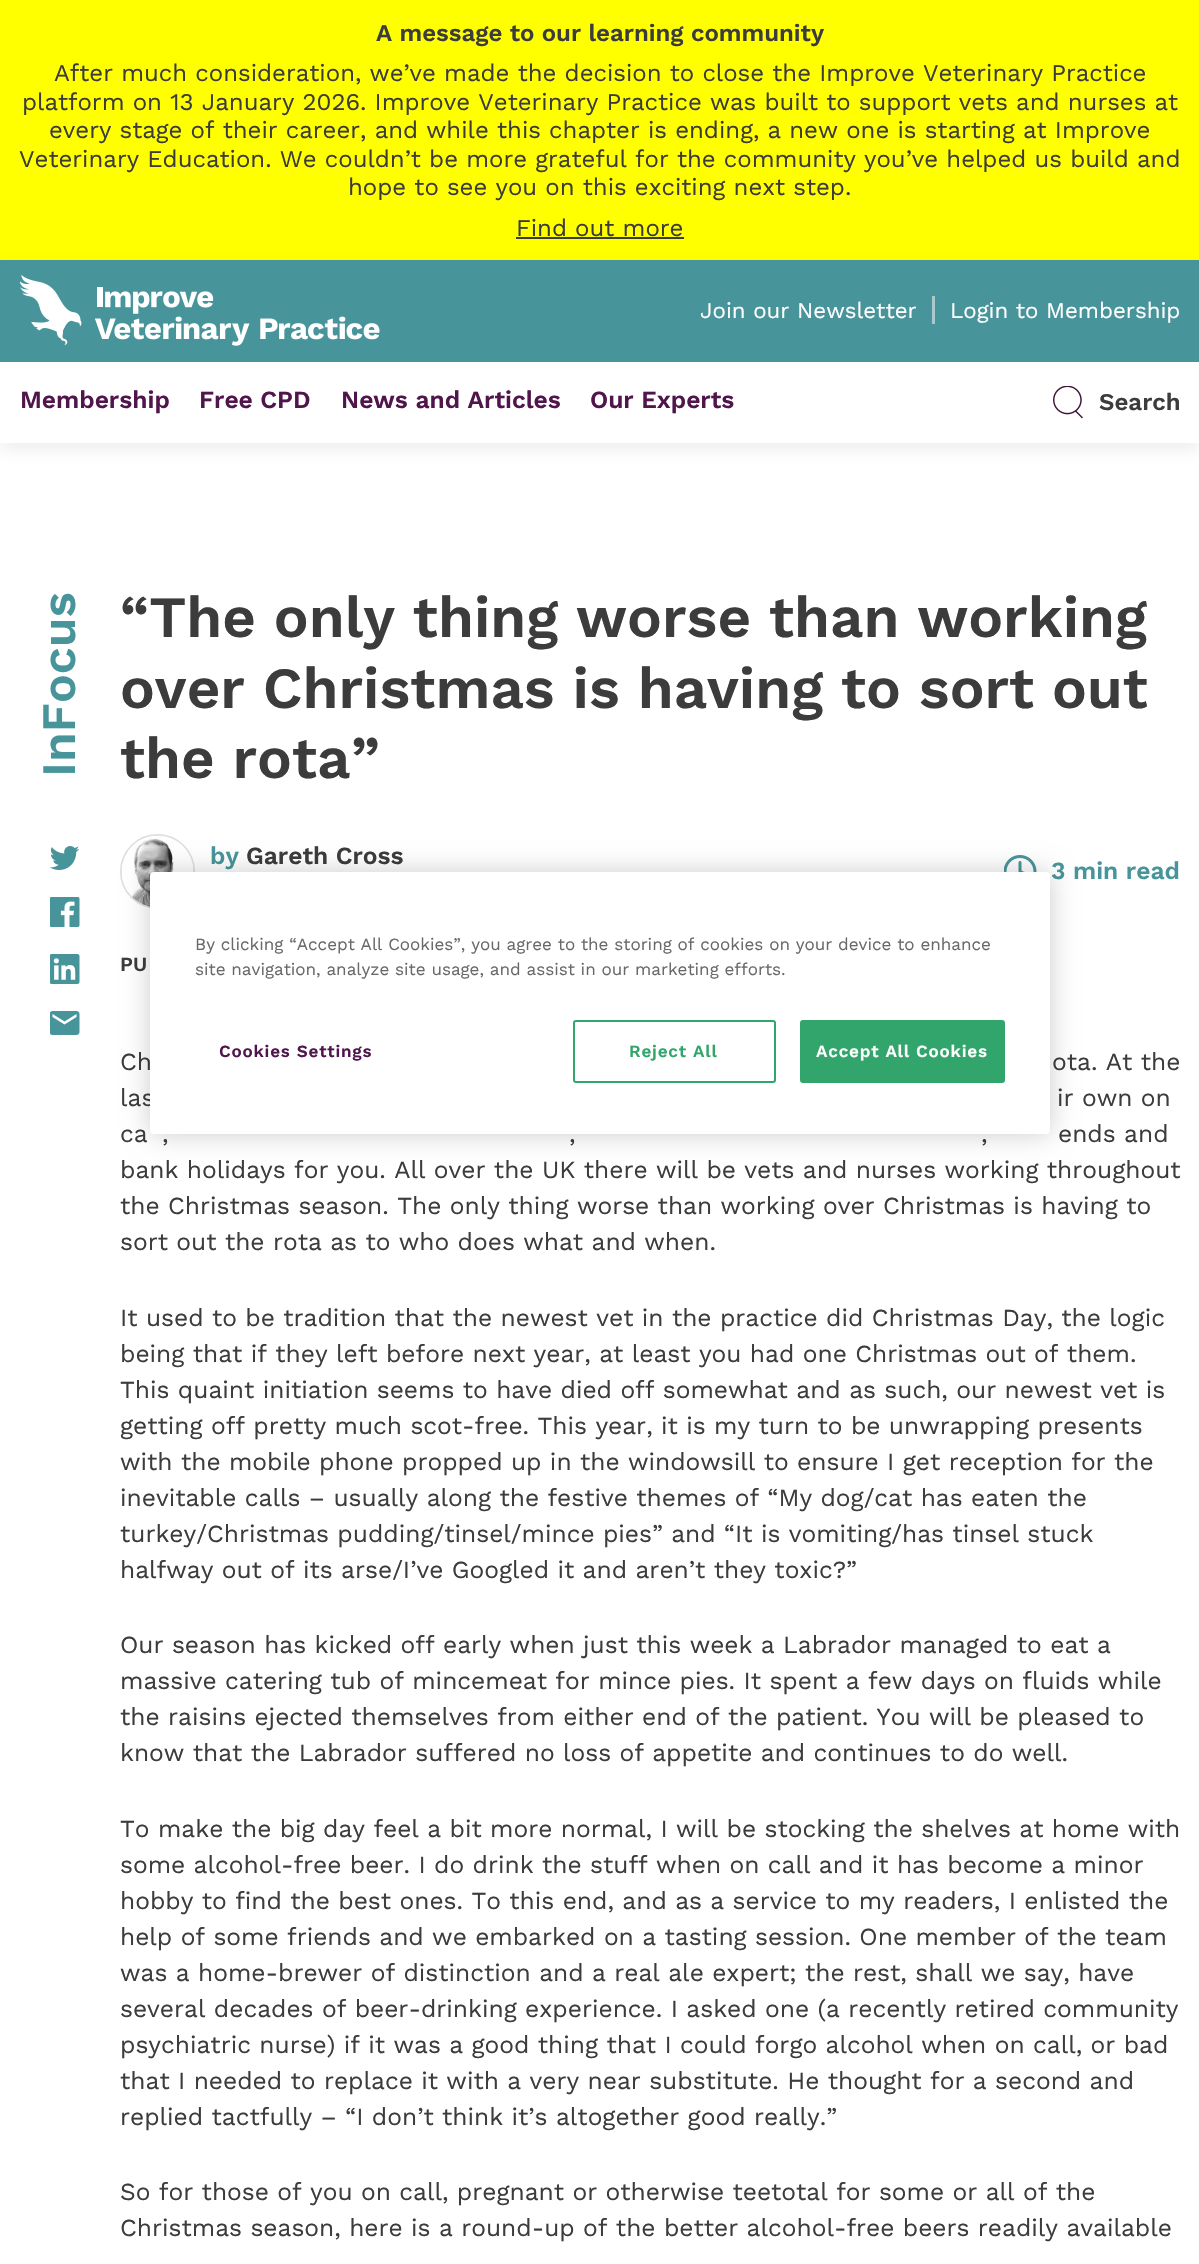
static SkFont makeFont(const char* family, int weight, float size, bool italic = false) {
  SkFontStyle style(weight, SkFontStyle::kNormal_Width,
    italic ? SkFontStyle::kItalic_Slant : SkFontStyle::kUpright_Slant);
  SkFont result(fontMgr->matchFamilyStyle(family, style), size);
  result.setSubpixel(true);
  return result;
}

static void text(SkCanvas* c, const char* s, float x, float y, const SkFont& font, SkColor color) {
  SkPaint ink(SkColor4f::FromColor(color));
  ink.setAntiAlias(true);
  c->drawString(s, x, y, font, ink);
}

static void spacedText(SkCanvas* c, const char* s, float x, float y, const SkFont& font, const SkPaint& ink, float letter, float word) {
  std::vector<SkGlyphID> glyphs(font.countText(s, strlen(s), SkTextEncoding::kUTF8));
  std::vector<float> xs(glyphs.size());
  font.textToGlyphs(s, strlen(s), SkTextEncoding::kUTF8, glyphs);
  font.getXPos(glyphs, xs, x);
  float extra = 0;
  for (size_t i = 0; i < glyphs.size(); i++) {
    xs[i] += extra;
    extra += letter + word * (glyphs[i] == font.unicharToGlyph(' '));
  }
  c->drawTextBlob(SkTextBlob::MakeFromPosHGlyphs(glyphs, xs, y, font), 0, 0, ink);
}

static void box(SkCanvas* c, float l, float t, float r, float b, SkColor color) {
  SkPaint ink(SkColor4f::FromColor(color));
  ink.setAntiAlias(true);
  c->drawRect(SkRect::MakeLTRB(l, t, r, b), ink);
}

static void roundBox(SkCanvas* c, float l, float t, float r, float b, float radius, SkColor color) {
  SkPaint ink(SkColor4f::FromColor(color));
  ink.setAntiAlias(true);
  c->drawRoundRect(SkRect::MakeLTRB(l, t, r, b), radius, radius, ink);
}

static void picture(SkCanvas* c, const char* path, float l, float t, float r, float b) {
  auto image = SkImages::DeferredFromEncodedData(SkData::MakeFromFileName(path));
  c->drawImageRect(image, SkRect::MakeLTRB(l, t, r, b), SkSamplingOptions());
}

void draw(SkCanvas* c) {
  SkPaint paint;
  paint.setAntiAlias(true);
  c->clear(0xffffffff);
  box(c, 0, 0, 1199, 260, 0xffffff00);
  SkFont face1 = makeFont("Work Sans", 600, 24);
  text(c, "A message to our learning community", 376, 41, face1, 0xff3c3c3c);
  SkFont face2 = makeFont("Work Sans", 400, 24);
  text(c, "After much consideration, we’ve made the decision to close the Improve Veterinary Practice", 54, 81, face2, 0xff3c3c3c);
  text(c, "platform on 13 January 2026. Improve Veterinary Practice was built to support vets and nurses at", 22, 110, face2, 0xff3c3c3c);
  text(c, "every stage of their career, and while this chapter is ending, a new one is starting at Improve", 49, 138, face2, 0xff3c3c3c);
  text(c, "Veterinary Education. We couldn’t be more grateful for the community you’ve helped us build and", 19, 167, face2, 0xff3c3c3c);
  text(c, "hope to see you on this exciting next step.", 348, 195, face2, 0xff3c3c3c);
  text(c, "Find out more", 516, 236, face2, 0xff3c3c3c);
  box(c, 516, 237, 684, 239, 0xff3c3c3c);
  paint.setColor(0x217c7c7c);
  paint.setMaskFilter(SkMaskFilter::MakeBlur(kNormal_SkBlurStyle, 7.5f));
  c->drawRect(SkRect::MakeLTRB(0, 267, 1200, 450), paint);
  paint.setMaskFilter(nullptr);
  box(c, 0, 260, 1199, 362, 0xff47959b);
  picture(c, "img_01.png", 20, 275, 380, 346);
  box(c, 932, 296, 935, 324, 0xffaac9cc);
  SkFont face3 = makeFont("Work Sans", 400, 22.25f);
  text(c, "Join our Newsletter", 700, 318, face3, 0xffffffff);
  text(c, "Login to Membership", 950, 318, face3, 0xffffffff);
  box(c, 0, 362, 1199, 443, 0xffffffff);
  SkFont face4 = makeFont("Work Sans", 600, 24.55f);
  text(c, "Membership", 20, 408, face4, 0xff50154b);
  text(c, "Free CPD", 199, 408, face4, 0xff50154b);
  text(c, "News and Articles", 341, 408, face4, 0xff50154b);
  text(c, "Our Experts", 590, 408, face4, 0xff50154b);
  picture(c, "img_02.png", 1053, 386, 1083, 419);
  text(c, "Search", 1099, 410, face1, 0xff3c3c3c);
  SkFont face5 = makeFont("Work Sans", 600, 48);
  c->save();
  c->rotate(-90, 75, 777);
  text(c, "InFocus", 75, 777, face5, 0xff47959b);
  c->restore();
  picture(c, "img_03.png", 50, 846, 79, 870);
  picture(c, "img_04.png", 50, 897, 80, 927);
  picture(c, "img_05.png", 50, 954, 80, 984);
  picture(c, "img_06.png", 50, 1011, 80, 1035);
  SkFont face6 = makeFont("Work Sans", 600, 58.2f);
  text(c, "“The only thing worse than working", 120, 637, face6, 0xff3c3c3c);
  text(c, "over Christmas is having to sort out", 120, 708, face6, 0xff3c3c3c);
  text(c, "the rota”", 120, 778, face6, 0xff3c3c3c);
  paint.setStyle(SkPaint::kStroke_Style);
  paint.setStrokeWidth(2);
  paint.setColor(0xffdedede);
  c->drawCircle(157.5f, 871.5f, 36.5f, paint);
  picture(c, "img_07.png", 121, 835, 194, 907);
  text(c, "by", 210, 864, face4, 0xff47959b);
  text(c, "Gareth Cross", 246, 864, face4, 0xff3c3c3c);
  picture(c, "img_08.png", 1004, 855, 1037, 872);
  text(c, "3 min read", 1051, 879, face4, 0xff47959b);
  SkFont face7 = makeFont("Work Sans", 600, 20);
  text(c, "PU", 120, 971, face7, 0xff3c3c3c);
  SkFont face8 = makeFont("Work Sans", 400, 24.55f);
  text(c, "Ch", 120, 1070, face8, 0xff3c3c3c);
  text(c, "ota. At the", 1052, 1070, face8, 0xff3c3c3c);
  text(c, "las", 120, 1106, face8, 0xff3c3c3c);
  text(c, "ir own on", 1057, 1106, face8, 0xff3c3c3c);
  text(c, "ca", 120, 1142, face8, 0xff3c3c3c);
  text(c, ",", 162, 1142, face8, 0xff3c3c3c);
  text(c, ",", 569, 1142, face8, 0xff3c3c3c);
  text(c, ",", 981, 1142, face8, 0xff3c3c3c);
  text(c, "ends and", 1058, 1142, face8, 0xff3c3c3c);
  text(c, "bank holidays for you. All over the UK there will be vets and nurses working throughout", 120, 1178, face8, 0xff3c3c3c);
  text(c, "the Christmas season. The only thing worse than working over Christmas is having to", 120, 1214, face8, 0xff3c3c3c);
  text(c, "sort out the rota as to who does what and when.", 120, 1250, face8, 0xff3c3c3c);
  text(c, "It used to be tradition that the newest vet in the practice did Christmas Day, the logic", 120, 1326, face8, 0xff3c3c3c);
  text(c, "being that if they left before next year, at least you had one Christmas out of them.", 120, 1362, face8, 0xff3c3c3c);
  text(c, "This quaint initiation seems to have died off somewhat and as such, our newest vet is", 120, 1398, face8, 0xff3c3c3c);
  text(c, "getting off pretty much scot-free. This year, it is my turn to be unwrapping presents", 120, 1434, face8, 0xff3c3c3c);
  text(c, "with the mobile phone propped up in the windowsill to ensure I get reception for the", 120, 1470, face8, 0xff3c3c3c);
  text(c, "inevitable calls – usually along the festive themes of “My dog/cat has eaten the", 120, 1506, face8, 0xff3c3c3c);
  text(c, "turkey/Christmas pudding/tinsel/mince pies” and “It is vomiting/has tinsel stuck", 120, 1542, face8, 0xff3c3c3c);
  text(c, "halfway out of its arse/I’ve Googled it and aren’t they toxic?”", 120, 1578, face8, 0xff3c3c3c);
  text(c, "Our season has kicked off early when just this week a Labrador managed to eat a", 120, 1653, face8, 0xff3c3c3c);
  text(c, "massive catering tub of mincemeat for mince pies. It spent a few days on fluids while", 120, 1689, face8, 0xff3c3c3c);
  text(c, "the raisins ejected themselves from either end of the patient. You will be pleased to", 120, 1725, face8, 0xff3c3c3c);
  text(c, "know that the Labrador suffered no loss of appetite and continues to do well.", 120, 1761, face8, 0xff3c3c3c);
  text(c, "To make the big day feel a bit more normal, I will be stocking the shelves at home with", 120, 1837, face8, 0xff3c3c3c);
  text(c, "some alcohol-free beer. I do drink the stuff when on call and it has become a minor", 120, 1873, face8, 0xff3c3c3c);
  text(c, "hobby to find the best ones. To this end, and as a service to my readers, I enlisted the", 120, 1909, face8, 0xff3c3c3c);
  text(c, "help of some friends and we embarked on a tasting session. One member of the team", 120, 1945, face8, 0xff3c3c3c);
  text(c, "was a home-brewer of distinction and a real ale expert; the rest, shall we say, have", 120, 1981, face8, 0xff3c3c3c);
  text(c, "several decades of beer-drinking experience. I asked one (a recently retired community", 120, 2017, face8, 0xff3c3c3c);
  text(c, "psychiatric nurse) if it was a good thing that I could forgo alcohol when on call, or bad", 120, 2053, face8, 0xff3c3c3c);
  text(c, "that I needed to replace it with a very near substitute. He thought for a second and", 120, 2089, face8, 0xff3c3c3c);
  text(c, "replied tactfully – “I don’t think it’s altogether good really.”", 120, 2125, face8, 0xff3c3c3c);
  text(c, "So for those of you on call, pregnant or otherwise teetotal for some or all of the", 120, 2200, face8, 0xff3c3c3c);
  text(c, "Christmas season, here is a round-up of the better alcohol-free beers readily available", 120, 2236, face8, 0xff3c3c3c);
  paint.setStyle(SkPaint::kFill_Style);
  paint.setColor(0x33000000);
  paint.setMaskFilter(SkMaskFilter::MakeBlur(kNormal_SkBlurStyle, 13.5f));
  c->drawRoundRect(SkRect::MakeLTRB(150, 872, 1050, 1134), 4, 4, paint);
  paint.setMaskFilter(nullptr);
  roundBox(c, 150, 872, 1050, 1134, 4, 0xffffffff);
  SkFont face9 = makeFont("Work Sans", 400, 17.05f);
  text(c, "By clicking “Accept All Cookies”, you agree to the storing of cookies on your device to enhance", 195, 950, face9, 0xff696969);
  text(c, "site navigation, analyze site usage, and assist in our marketing efforts.", 195, 975, face9, 0xff696969);
  SkFont face10 = makeFont("Work Sans", 600, 17.05f);
  paint.setColor(0xff50154b);
  spacedText(c, "Cookies Settings", 219, 1057, face10, paint, 0.8f, 0);
  paint.setStyle(SkPaint::kStroke_Style);
  paint.setColor(0xff31a56b);
  c->drawRoundRect(SkRect::MakeLTRB(574, 1021, 775, 1082), 2, 2, paint);
  paint.setStyle(SkPaint::kFill_Style);
  spacedText(c, "Reject All", 629, 1057, face10, paint, 0.8f, 0);
  c->drawRoundRect(SkRect::MakeLTRB(801, 1021, 1004, 1082), 2, 2, paint);
  paint.setStyle(SkPaint::kStroke_Style);
  c->drawRoundRect(SkRect::MakeLTRB(801, 1021, 1004, 1082), 2, 2, paint);
  paint.setStyle(SkPaint::kFill_Style);
  paint.setColor(0xffffffff);
  spacedText(c, "Accept All Cookies", 816, 1057, face10, paint, 0.8f, 0);
}
